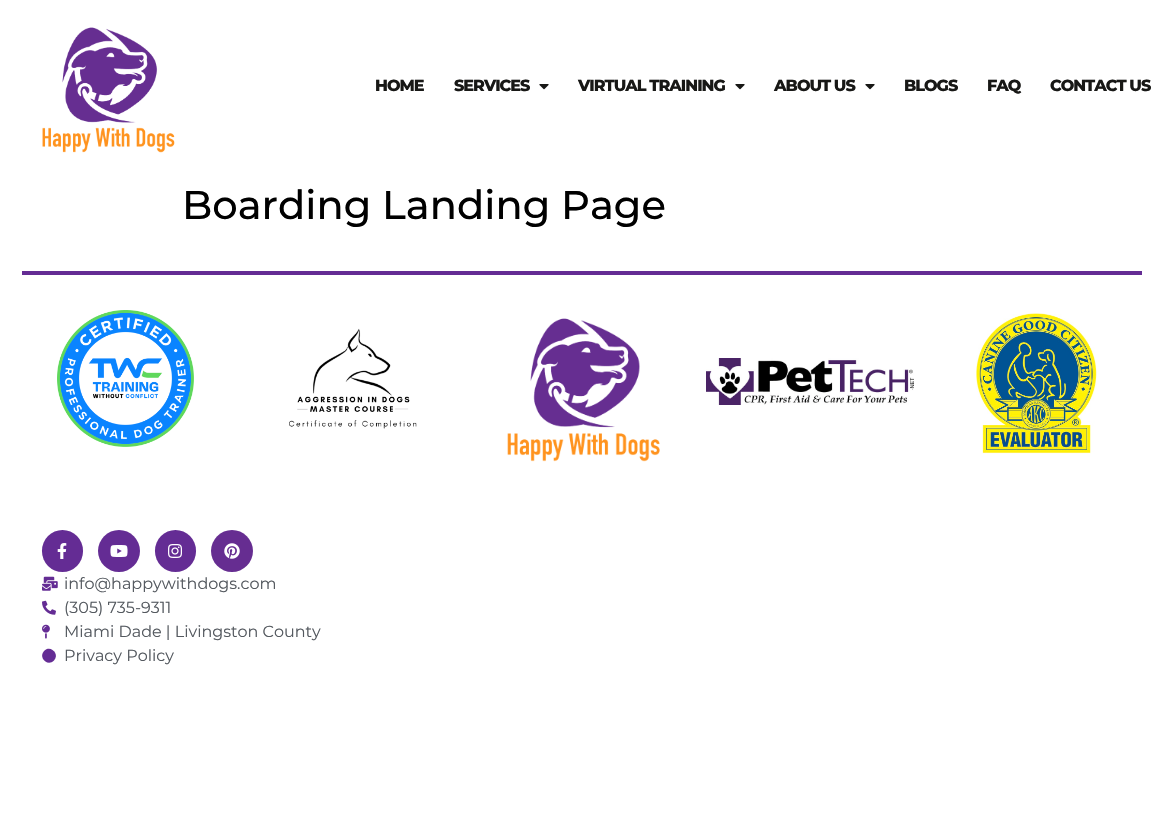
static SkFont makeFont(const char* family, int weight, float size, bool italic = false) {
  SkFontStyle style(weight, SkFontStyle::kNormal_Width,
    italic ? SkFontStyle::kItalic_Slant : SkFontStyle::kUpright_Slant);
  SkFont result(fontMgr->matchFamilyStyle(family, style), size);
  result.setSubpixel(true);
  return result;
}

static void text(SkCanvas* c, const char* s, float x, float y, const SkFont& font, SkColor color) {
  SkPaint ink(SkColor4f::FromColor(color));
  ink.setAntiAlias(true);
  c->drawString(s, x, y, font, ink);
}

static void spacedText(SkCanvas* c, const char* s, float x, float y, const SkFont& font, const SkPaint& ink, float letter, float word) {
  std::vector<SkGlyphID> glyphs(font.countText(s, strlen(s), SkTextEncoding::kUTF8));
  std::vector<float> xs(glyphs.size());
  font.textToGlyphs(s, strlen(s), SkTextEncoding::kUTF8, glyphs);
  font.getXPos(glyphs, xs, x);
  float extra = 0;
  for (size_t i = 0; i < glyphs.size(); i++) {
    xs[i] += extra;
    extra += letter + word * (glyphs[i] == font.unicharToGlyph(' '));
  }
  c->drawTextBlob(SkTextBlob::MakeFromPosHGlyphs(glyphs, xs, y, font), 0, 0, ink);
}

static void box(SkCanvas* c, float l, float t, float r, float b, SkColor color) {
  SkPaint ink(SkColor4f::FromColor(color));
  ink.setAntiAlias(true);
  c->drawRect(SkRect::MakeLTRB(l, t, r, b), ink);
}

static void roundBox(SkCanvas* c, float l, float t, float r, float b, float radius, SkColor color) {
  SkPaint ink(SkColor4f::FromColor(color));
  ink.setAntiAlias(true);
  c->drawRoundRect(SkRect::MakeLTRB(l, t, r, b), radius, radius, ink);
}

static void picture(SkCanvas* c, const char* path, float l, float t, float r, float b) {
  auto image = SkImages::DeferredFromEncodedData(SkData::MakeFromFileName(path));
  c->drawImageRect(image, SkRect::MakeLTRB(l, t, r, b), SkSamplingOptions());
}

void draw(SkCanvas* c) {
  SkPaint paint;
  paint.setAntiAlias(true);
  c->clear(0xffffffff);
  picture(c, "img_01.png", 42, 27, 175, 153);
  SkFont face1 = makeFont("Montserrat", 800, 16);
  paint.setColor(0xff181816);
  spacedText(c, "HOME", 375, 91, face1, paint, -1, 0);
  spacedText(c, "SERVICES", 454, 91, face1, paint, -1, 0);
  picture(c, "img_02.png", 539, 84, 549, 90);
  spacedText(c, "VIRTUAL TRAINING", 578, 91, face1, paint, -1, 0);
  picture(c, "img_02.png", 735, 84, 745, 90);
  spacedText(c, "ABOUT US", 774, 91, face1, paint, -1, 0);
  picture(c, "img_02.png", 865, 84, 875, 90);
  spacedText(c, "BLOGS", 904, 91, face1, paint, -1, 0);
  spacedText(c, "FAQ", 987, 91, face1, paint, -1, 0);
  spacedText(c, "CONTACT US", 1050, 91, face1, paint, -1, 0);
  SkFont face2 = makeFont("Montserrat", 500, 40);
  text(c, "Boarding Landing Page", 182, 219, face2, 0xff000000);
  box(c, 22, 271, 1142, 275, 0xff642c94);
  picture(c, "img_03.png", 57, 310, 194, 447);
  picture(c, "img_04.png", 289, 328, 417, 429);
  picture(c, "img_05.png", 507, 318, 660, 462);
  picture(c, "img_06.png", 706, 358, 914, 405);
  picture(c, "img_07.png", 976, 313, 1097, 454);
  roundBox(c, 42, 530, 83, 572, 20.5f, 0xff642c94);
  picture(c, "img_08.png", 57, 543, 67, 559);
  paint.setColor(0xff642c94);
  c->drawCircle(119, 551, 21, paint);
  picture(c, "img_09.png", 110, 545, 128, 557);
  roundBox(c, 155, 530, 196, 572, 20.5f, 0xff642c94);
  picture(c, "img_10.png", 168, 544, 182, 558);
  paint.setColor(0xff662d91);
  c->drawCircle(232, 551, 21, paint);
  picture(c, "img_11.png", 224, 543, 240, 559);
  picture(c, "img_12.png", 42, 576, 58, 591);
  SkFont face3 = makeFont("Montserrat", 400, 16);
  text(c, "info@happywithdogs.com", 64, 589, face3, 0xff54595f);
  picture(c, "img_13.png", 42, 600, 56, 615);
  text(c, "(305) 735-9311", 64, 613, face3, 0xff54595f);
  picture(c, "img_14.png", 42, 624, 50, 639);
  text(c, "Miami Dade | Livingston County", 64, 637, face3, 0xff54595f);
  paint.setColor(0xff642c94);
  c->drawPath(SkPathBuilder().moveTo(44, 651).cubicTo(50.5f, 644.5f, 60, 654, 54, 660.5f).cubicTo(47.5f, 667, 38, 657.5f, 44, 651).close().detach(), paint);
  text(c, "Privacy Policy", 64, 661, face3, 0xff54595f);
}
